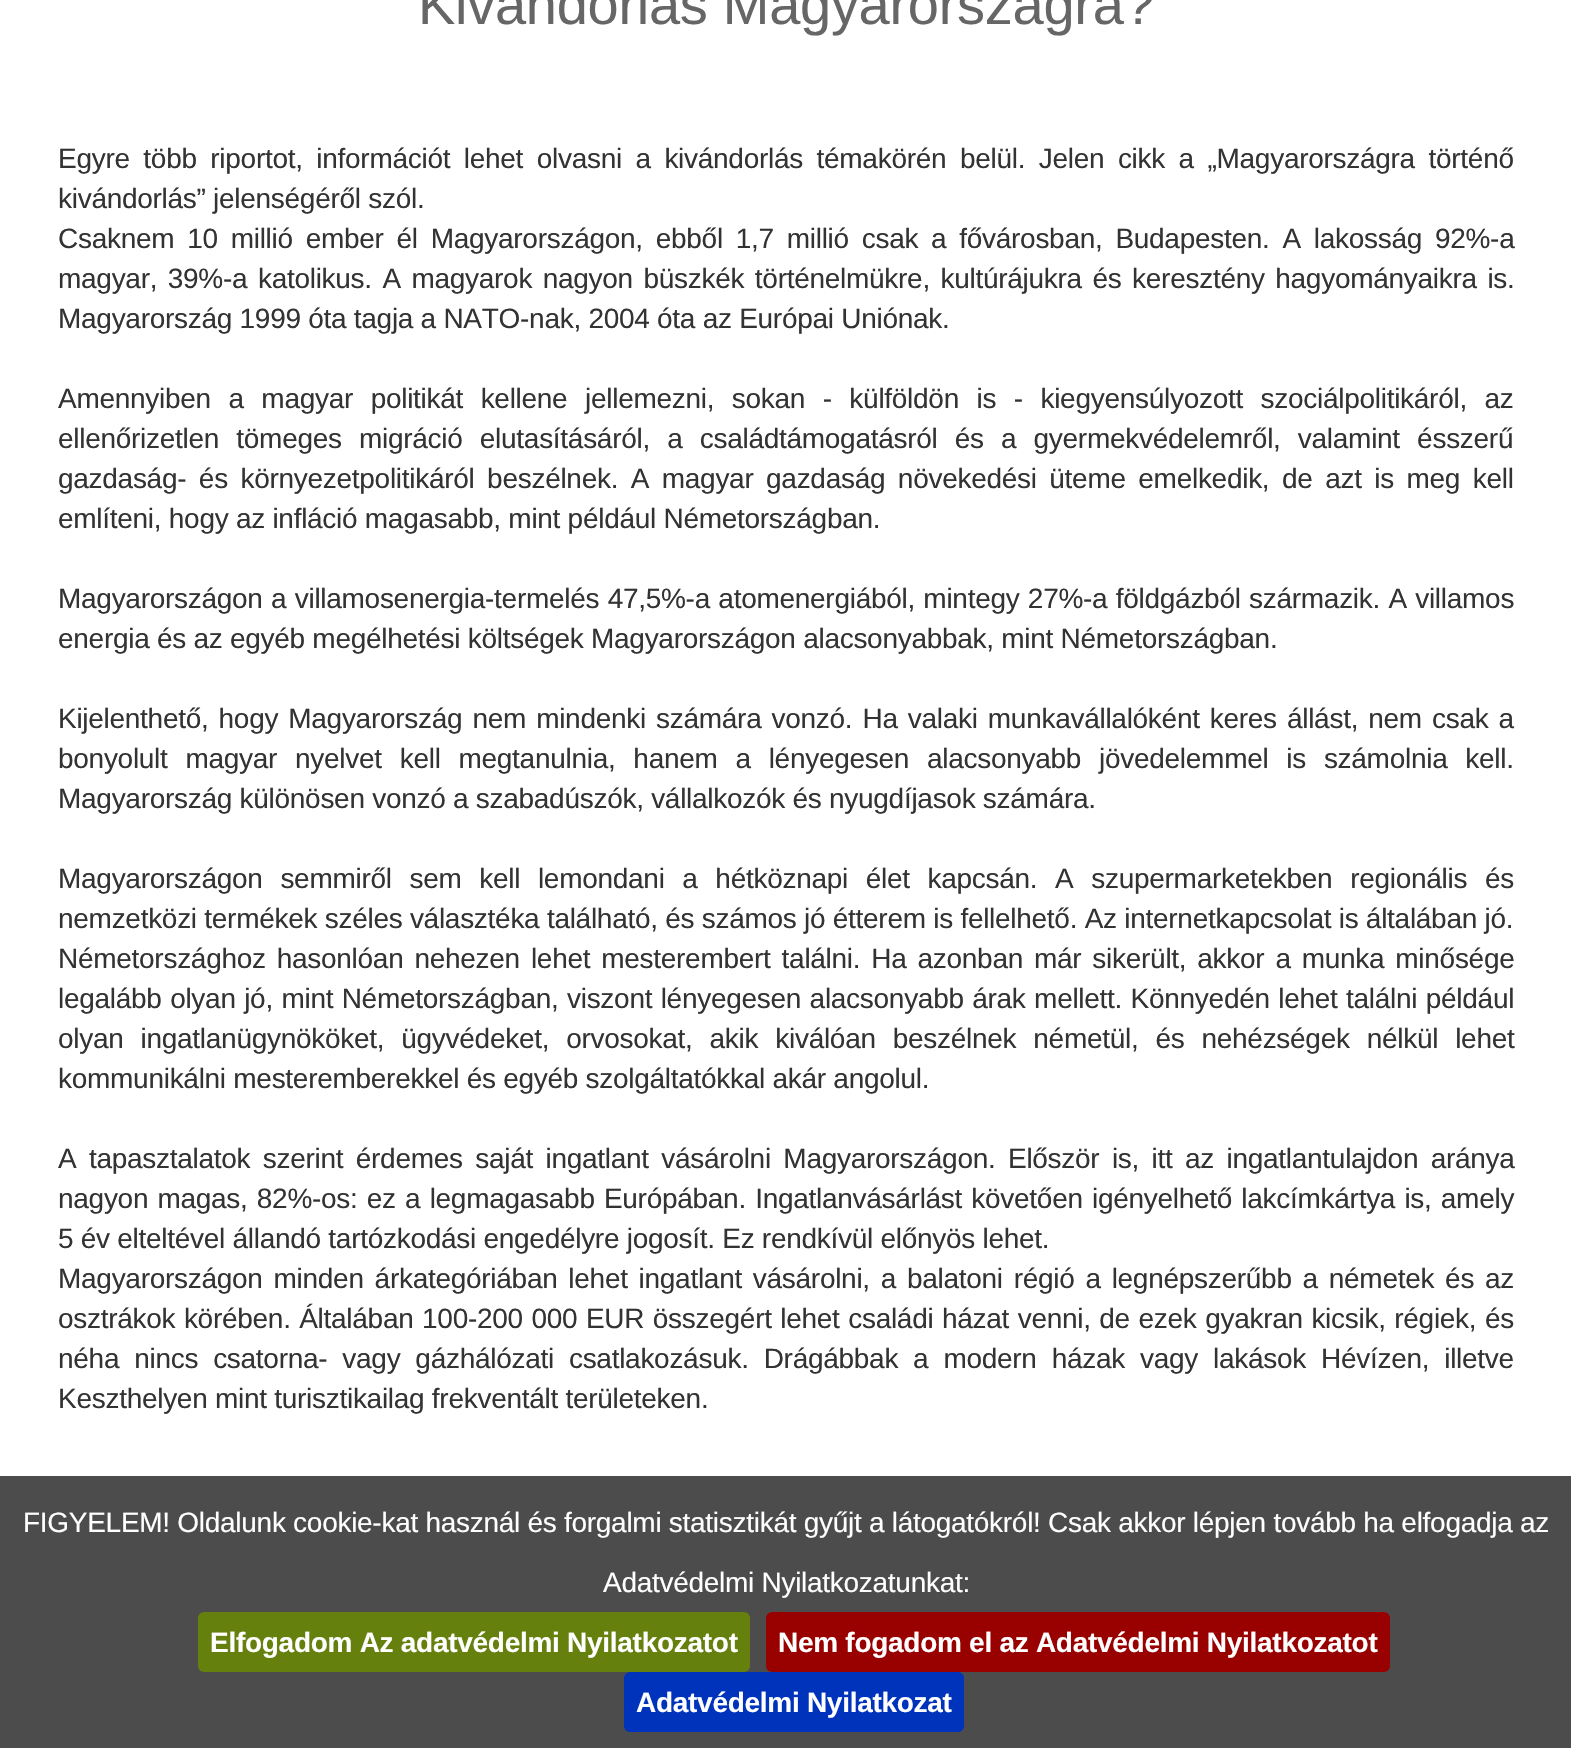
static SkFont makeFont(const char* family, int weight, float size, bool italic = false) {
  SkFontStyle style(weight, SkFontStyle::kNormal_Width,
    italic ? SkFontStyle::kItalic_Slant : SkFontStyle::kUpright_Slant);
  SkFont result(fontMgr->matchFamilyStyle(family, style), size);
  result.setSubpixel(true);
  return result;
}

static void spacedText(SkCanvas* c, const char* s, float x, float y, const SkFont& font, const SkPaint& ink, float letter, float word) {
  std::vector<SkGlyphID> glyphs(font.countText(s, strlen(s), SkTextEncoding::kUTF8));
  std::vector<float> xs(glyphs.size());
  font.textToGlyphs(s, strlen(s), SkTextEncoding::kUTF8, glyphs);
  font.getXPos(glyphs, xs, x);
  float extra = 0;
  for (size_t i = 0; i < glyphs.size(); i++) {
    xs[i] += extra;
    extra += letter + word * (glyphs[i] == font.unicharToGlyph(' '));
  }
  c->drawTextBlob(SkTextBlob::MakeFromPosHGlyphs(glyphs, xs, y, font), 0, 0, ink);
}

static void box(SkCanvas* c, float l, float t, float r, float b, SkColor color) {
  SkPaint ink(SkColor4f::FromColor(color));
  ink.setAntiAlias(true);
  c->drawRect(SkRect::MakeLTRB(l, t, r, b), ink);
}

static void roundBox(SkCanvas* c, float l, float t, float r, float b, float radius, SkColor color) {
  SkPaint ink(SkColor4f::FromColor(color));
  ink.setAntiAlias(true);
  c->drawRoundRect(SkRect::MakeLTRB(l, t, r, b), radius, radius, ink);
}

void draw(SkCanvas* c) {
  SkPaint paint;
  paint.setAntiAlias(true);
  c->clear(0xffffffff);
  SkFont face1 = makeFont("Liberation Sans", 400, 56);
  paint.setColor(0xff666666);
  spacedText(c, "Kivándorlás Magyarországra?", 418, 24, face1, paint, -0.28f, 0);
  SkFont face2 = makeFont("Liberation Sans", 400, 28);
  paint.setColor(0xff333333);
  spacedText(c, "Egyre több riportot, információt lehet olvasni a kivándorlás témakörén belül. Jelen cikk a „Magyarországra történő", 58, 168, face2, paint, -0.28f, 6.1f);
  spacedText(c, "kivándorlás” jelenségéről szól.", 58, 208, face2, paint, -0.28f, 0);
  spacedText(c, "Csaknem 10 millió ember él Magyarországon, ebből 1,7 millió csak a fővárosban, Budapesten. A lakosság 92%-a", 58, 248, face2, paint, -0.28f, 5.4f);
  spacedText(c, "magyar, 39%-a katolikus. A magyarok nagyon büszkék történelmükre, kultúrájukra és keresztény hagyományaikra is.", 58, 288, face2, paint, -0.28f, 3.1f);
  spacedText(c, "Magyarország 1999 óta tagja a NATO-nak, 2004 óta az Európai Uniónak.", 58, 328, face2, paint, -0.28f, 0);
  spacedText(c, "Amennyiben a magyar politikát kellene jellemezni, sokan - külföldön is - kiegyensúlyozott szociálpolitikáról, az", 58, 408, face2, paint, -0.28f, 10.1f);
  spacedText(c, "ellenőrizetlen tömeges migráció elutasításáról, a családtámogatásról és a gyermekvédelemről, valamint ésszerű", 58, 448, face2, paint, -0.28f, 9.75f);
  spacedText(c, "gazdaság- és környezetpolitikáról beszélnek. A magyar gazdaság növekedési üteme emelkedik, de azt is meg kell", 58, 488, face2, paint, -0.28f, 5.1f);
  spacedText(c, "említeni, hogy az infláció magasabb, mint például Németországban.", 58, 528, face2, paint, -0.28f, 0);
  spacedText(c, "Magyarországon a villamosenergia-termelés 47,5%-a atomenergiából, mintegy 27%-a földgázból származik. A villamos", 58, 608, face2, paint, -0.28f, 0.9f);
  spacedText(c, "energia és az egyéb megélhetési költségek Magyarországon alacsonyabbak, mint Németországban.", 58, 648, face2, paint, -0.28f, 0);
  spacedText(c, "Kijelenthető, hogy Magyarország nem mindenki számára vonzó. Ha valaki munkavállalóként keres állást, nem csak a", 58, 728, face2, paint, -0.28f, 2.6f);
  spacedText(c, "bonyolult magyar nyelvet kell megtanulnia, hanem a lényegesen alacsonyabb jövedelemmel is számolnia kell.", 58, 768, face2, paint, -0.28f, 10.4f);
  spacedText(c, "Magyarország különösen vonzó a szabadúszók, vállalkozók és nyugdíjasok számára.", 58, 808, face2, paint, -0.28f, 0);
  spacedText(c, "Magyarországon semmiről sem kell lemondani a hétköznapi élet kapcsán. A szupermarketekben regionális és", 58, 888, face2, paint, -0.28f, 10.25f);
  spacedText(c, "nemzetközi termékek széles választéka található, és számos jó étterem is fellelhető. Az internetkapcsolat is általában jó.", 58, 928, face2, paint, -0.28f, 0);
  spacedText(c, "Németországhoz hasonlóan nehezen lehet mesterembert találni. Ha azonban már sikerült, akkor a munka minősége", 58, 968, face2, paint, -0.28f, 3.5f);
  spacedText(c, "legalább olyan jó, mint Németországban, viszont lényegesen alacsonyabb árak mellett. Könnyedén lehet találni például", 58, 1008, face2, paint, -0.28f, 1);
  spacedText(c, "olyan ingatlanügynököket, ügyvédeket, orvosokat, akik kiválóan beszélnek németül, és nehézségek nélkül lehet", 58, 1048, face2, paint, -0.28f, 9.5f);
  spacedText(c, "kommunikálni mesteremberekkel és egyéb szolgáltatókkal akár angolul.", 58, 1088, face2, paint, -0.28f, 0);
  spacedText(c, "A tapasztalatok szerint érdemes saját ingatlant vásárolni Magyarországon. Először is, itt az ingatlantulajdon aránya", 58, 1168, face2, paint, -0.28f, 5);
  spacedText(c, "nagyon magas, 82%-os: ez a legmagasabb Európában. Ingatlanvásárlást követően igényelhető lakcímkártya is, amely", 58, 1208, face2, paint, -0.28f, 1.75f);
  spacedText(c, "5 év elteltével állandó tartózkodási engedélyre jogosít. Ez rendkívül előnyös lehet.", 58, 1248, face2, paint, -0.28f, 0);
  spacedText(c, "Magyarországon minden árkategóriában lehet ingatlant vásárolni, a balatoni régió a legnépszerűbb a németek és az", 58, 1288, face2, paint, -0.28f, 3.4f);
  spacedText(c, "osztrákok körében. Általában 100-200 000 EUR összegért lehet családi házat venni, de ezek gyakran kicsik, régiek, és", 58, 1328, face2, paint, -0.28f, 1.1f);
  spacedText(c, "néha nincs csatorna- vagy gázhálózati csatlakozásuk. Drágábbak a modern házak vagy lakások Hévízen, illetve", 58, 1368, face2, paint, -0.28f, 7.5f);
  spacedText(c, "Keszthelyen mint turisztikailag frekventált területeken.", 58, 1408, face2, paint, -0.28f, 0);
  box(c, 0, 1476, 1571, 1748, 0xb3000000);
  paint.setColor(0xffffffff);
  spacedText(c, "FIGYELEM! Oldalunk cookie-kat használ és forgalmi statisztikát gyűjt a látogatókról! Csak akkor lépjen tovább ha elfogadja az", 23, 1532, face2, paint, -0.28f, 0);
  spacedText(c, "Adatvédelmi Nyilatkozatunkat:", 603, 1592, face2, paint, -0.28f, 0);
  roundBox(c, 198, 1612, 750, 1672, 6, 0xff66800d);
  SkFont face3 = makeFont("Liberation Sans", 700, 28);
  spacedText(c, "Elfogadom Az adatvédelmi Nyilatkozatot", 210, 1652, face3, paint, -0.28f, 0);
  roundBox(c, 766, 1612, 1390, 1672, 6, 0xff990000);
  spacedText(c, "Nem fogadom el az Adatvédelmi Nyilatkozatot", 778, 1652, face3, paint, -0.28f, 0);
  roundBox(c, 624, 1672, 964, 1732, 6, 0xff0033bb);
  spacedText(c, "Adatvédelmi Nyilatkozat", 636, 1712, face3, paint, -0.28f, 0);
}
